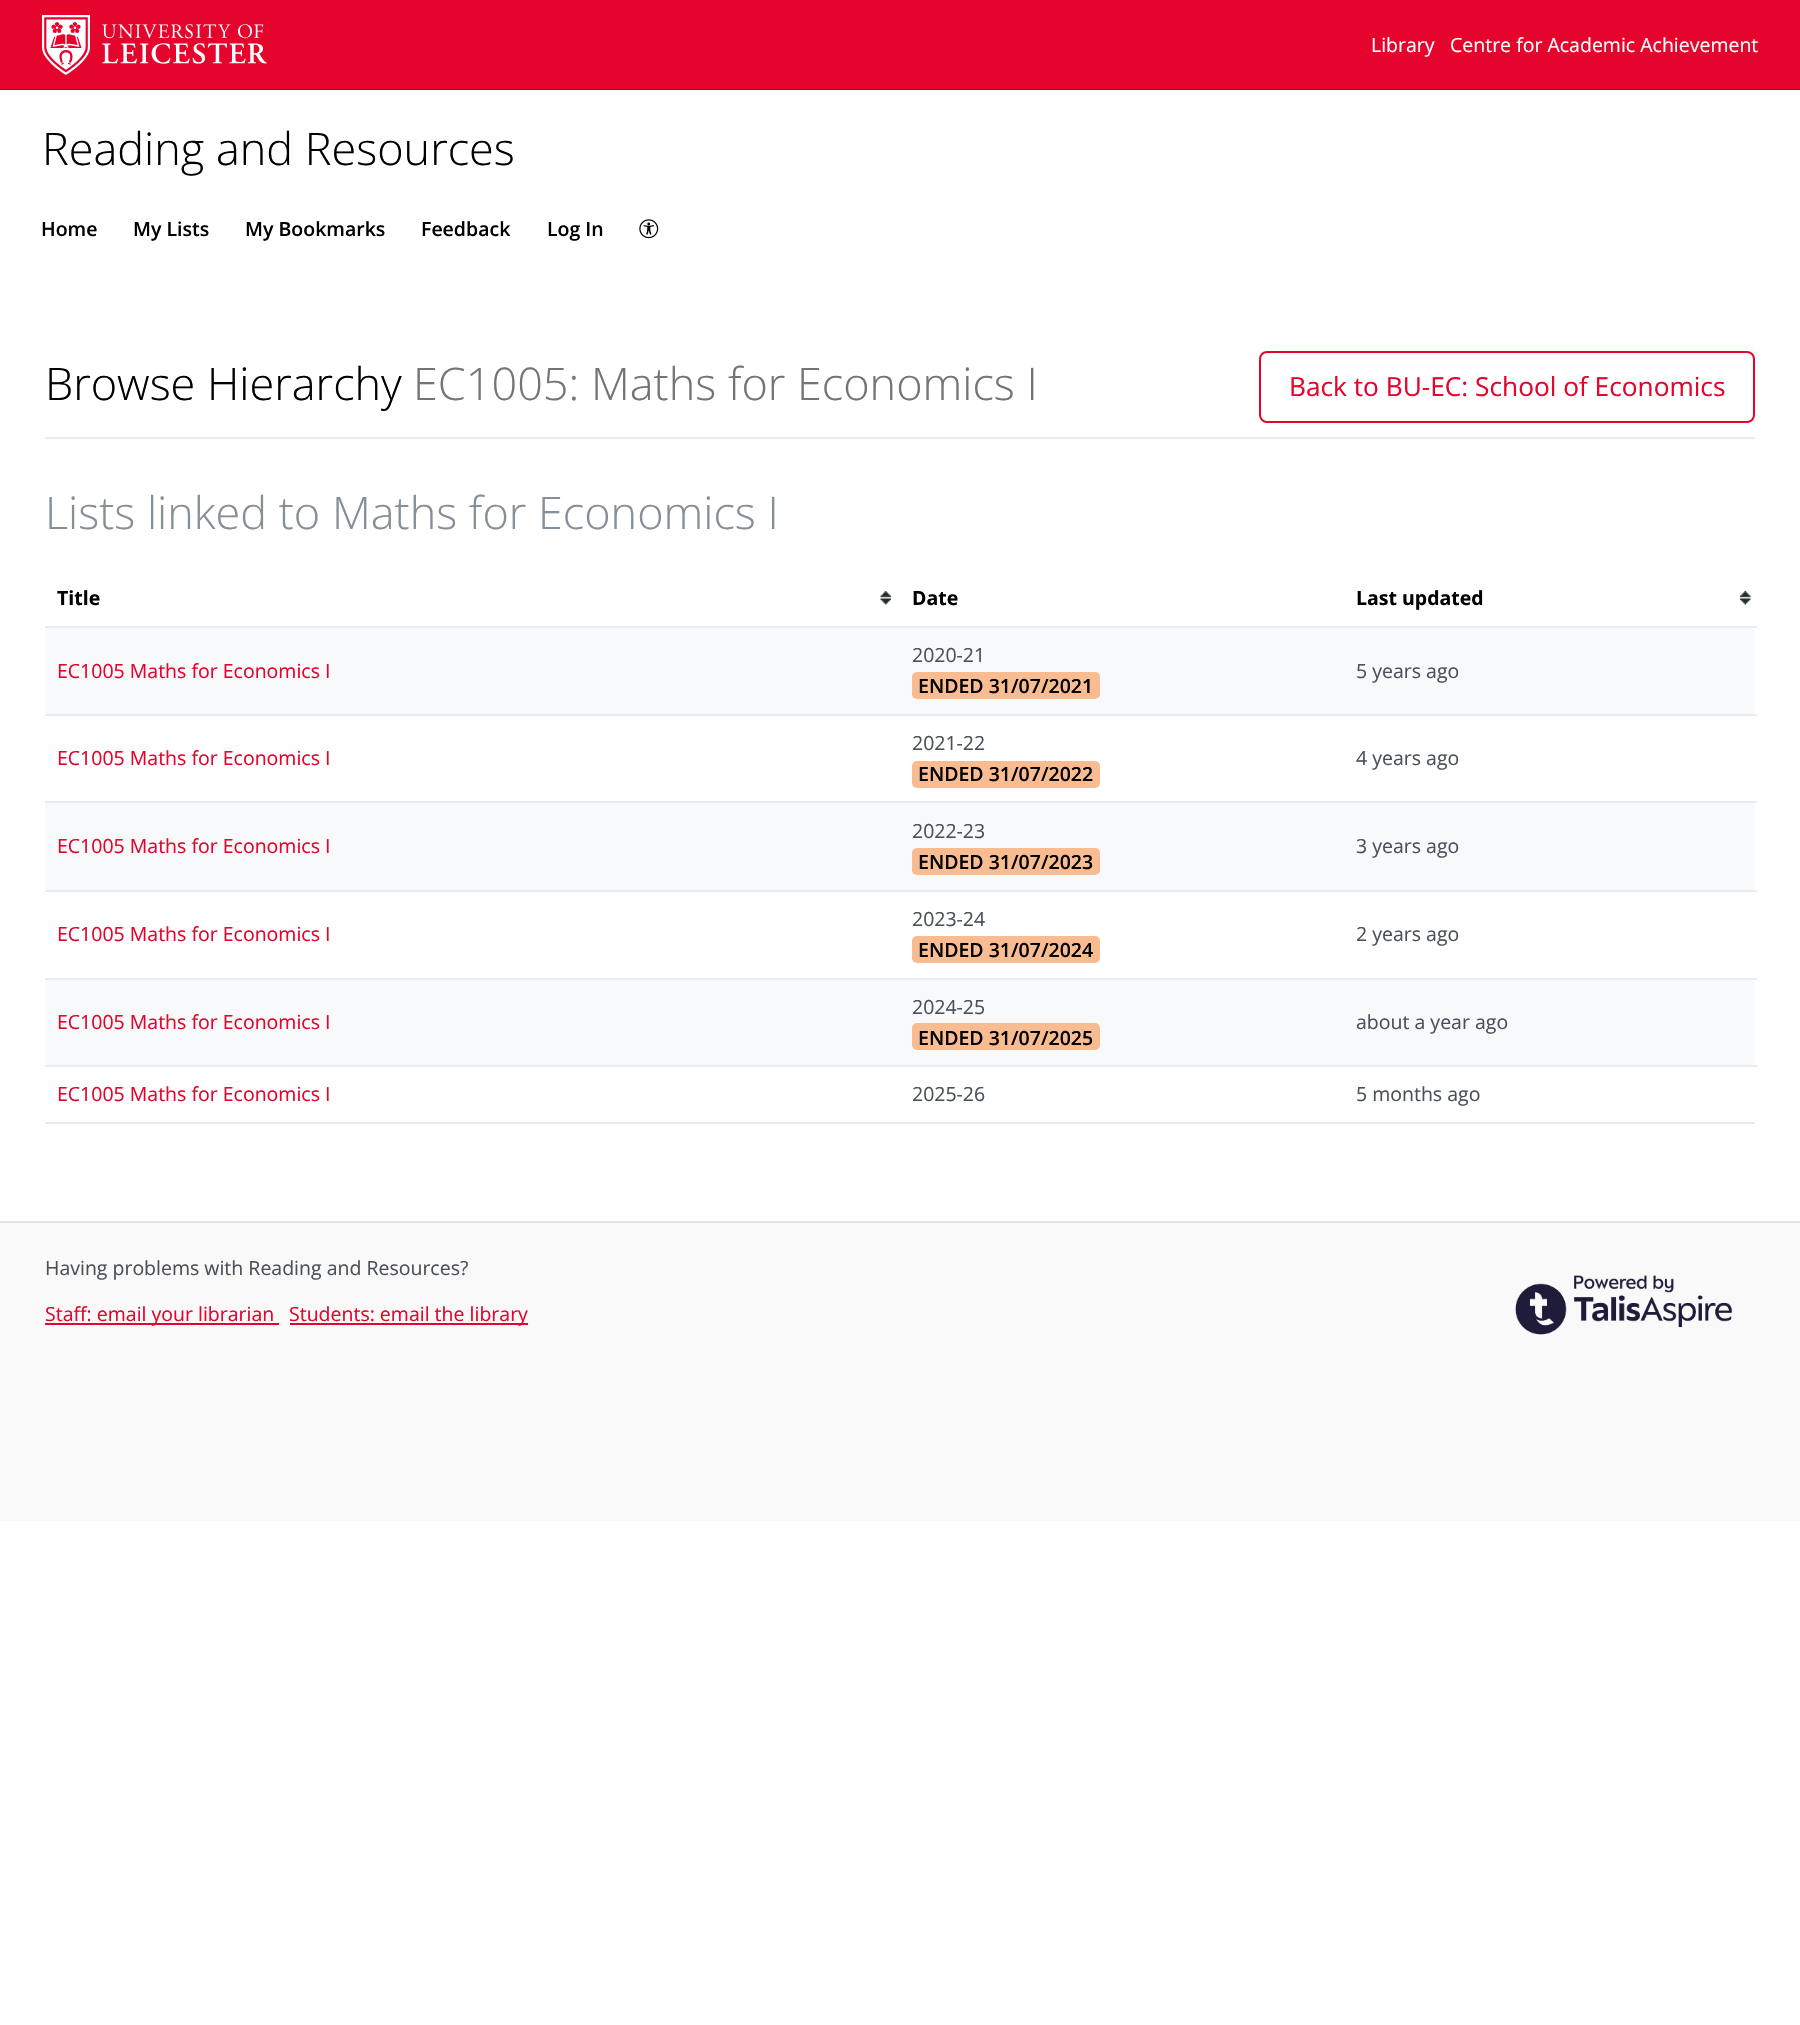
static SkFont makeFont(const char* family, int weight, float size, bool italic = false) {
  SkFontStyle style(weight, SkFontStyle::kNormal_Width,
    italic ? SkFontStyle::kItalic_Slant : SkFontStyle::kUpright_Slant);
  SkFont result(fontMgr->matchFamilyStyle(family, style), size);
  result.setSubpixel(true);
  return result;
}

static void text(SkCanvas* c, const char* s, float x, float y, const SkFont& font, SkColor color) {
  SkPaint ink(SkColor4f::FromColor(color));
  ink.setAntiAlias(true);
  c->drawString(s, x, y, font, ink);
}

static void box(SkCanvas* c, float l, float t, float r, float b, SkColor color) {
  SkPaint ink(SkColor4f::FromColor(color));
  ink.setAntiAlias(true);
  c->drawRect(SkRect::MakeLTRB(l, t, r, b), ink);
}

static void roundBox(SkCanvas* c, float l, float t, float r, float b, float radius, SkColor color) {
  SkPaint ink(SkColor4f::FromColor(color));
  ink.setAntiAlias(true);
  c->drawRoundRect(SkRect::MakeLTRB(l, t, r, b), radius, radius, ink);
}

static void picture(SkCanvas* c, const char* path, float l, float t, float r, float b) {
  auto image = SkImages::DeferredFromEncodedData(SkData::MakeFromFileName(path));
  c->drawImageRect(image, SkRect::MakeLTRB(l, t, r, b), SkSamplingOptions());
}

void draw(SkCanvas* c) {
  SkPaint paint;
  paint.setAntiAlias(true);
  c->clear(0xffffffff);
  box(c, 0, 0, 1800, 89, 0xffe4042c);
  box(c, 0, 89, 1800, 90, 0xffb60323);
  picture(c, "img_01.png", 42, 15, 267, 75);
  SkFont face1 = makeFont("Open Sans", 400, 19.5f);
  text(c, "Library", 1371, 52, face1, 0xffffffff);
  text(c, "Centre for Academic Achievement", 1450, 52, face1, 0xffffffff);
  SkFont face2 = makeFont("Open Sans", 300, 45);
  text(c, "Reading and Resources", 42, 165, face2, 0xff000000);
  SkFont face3 = makeFont("Open Sans", 600, 19.5f);
  text(c, "Home", 41, 236, face3, 0xff000000);
  text(c, "My Lists", 133, 236, face3, 0xff000000);
  text(c, "My Bookmarks", 245, 236, face3, 0xff000000);
  text(c, "Feedback", 421, 236, face3, 0xff000000);
  text(c, "Log In", 547, 236, face3, 0xff000000);
  picture(c, "img_02.png", 639, 219, 659, 239);
  box(c, 45, 437, 1755, 439, 0xffe9ecef);
  text(c, "Browse Hierarchy", 45, 400, face2, 0xff000000);
  text(c, "EC1005: Maths for Economics I", 413, 400, face2, 0xff747472);
  paint.setStyle(SkPaint::kStroke_Style);
  paint.setStrokeWidth(2);
  paint.setColor(0xffe4042c);
  c->drawRoundRect(SkRect::MakeLTRB(1260, 352, 1754, 422), 7, 7, paint);
  SkFont face4 = makeFont("Open Sans", 400, 26.25f);
  text(c, "Back to BU-EC: School of Economics", 1289, 396, face4, 0xffe4042c);
  text(c, "Lists linked to Maths for Economics I", 45, 529, face2, 0xff868e96);
  box(c, 45, 1122, 1755, 1124, 0xffe9ecef);
  picture(c, "img_03.png", 880, 591, 891, 605);
  SkFont face5 = makeFont("Open Sans", 700, 19.5f);
  text(c, "Title", 57, 605, face5, 0xff000000);
  text(c, "Date", 912, 605, face5, 0xff000000);
  picture(c, "img_04.png", 1740, 591, 1751, 605);
  text(c, "Last updated", 1356, 605, face5, 0xff000000);
  box(c, 45, 628, 1755, 714, 0xfff8f9fa);
  text(c, "EC1005 Maths for Economics I", 57, 678, face1, 0xffe4042c);
  text(c, "2020-21", 912, 662, face1, 0xff495057);
  roundBox(c, 912, 672, 1100, 699, 5, 0xfff9bb90);
  text(c, "ENDED 31/07/2021", 918, 693, face3, 0xff000000);
  box(c, 45, 626, 1757, 628, 0xffe9ecef);
  text(c, "5 years ago", 1356, 678, face1, 0xff495057);
  text(c, "EC1005 Maths for Economics I", 57, 765, face1, 0xffe4042c);
  text(c, "2021-22", 912, 750, face1, 0xff495057);
  roundBox(c, 912, 761, 1100, 788, 5, 0xfff9bb90);
  text(c, "ENDED 31/07/2022", 918, 781, face3, 0xff000000);
  box(c, 45, 714, 1757, 716, 0xffe9ecef);
  text(c, "4 years ago", 1356, 765, face1, 0xff495057);
  box(c, 45, 803, 1755, 890, 0xfff8f9fa);
  text(c, "EC1005 Maths for Economics I", 57, 853, face1, 0xffe4042c);
  text(c, "2022-23", 912, 838, face1, 0xff495057);
  roundBox(c, 912, 848, 1100, 875, 5, 0xfff9bb90);
  text(c, "ENDED 31/07/2023", 918, 869, face3, 0xff000000);
  box(c, 45, 801, 1757, 803, 0xffe9ecef);
  text(c, "3 years ago", 1356, 853, face1, 0xff495057);
  text(c, "EC1005 Maths for Economics I", 57, 941, face1, 0xffe4042c);
  text(c, "2023-24", 912, 926, face1, 0xff495057);
  roundBox(c, 912, 936, 1100, 963, 5, 0xfff9bb90);
  text(c, "ENDED 31/07/2024", 918, 957, face3, 0xff000000);
  box(c, 45, 890, 1757, 892, 0xffe9ecef);
  text(c, "2 years ago", 1356, 941, face1, 0xff495057);
  box(c, 45, 980, 1755, 1065, 0xfff8f9fa);
  text(c, "EC1005 Maths for Economics I", 57, 1029, face1, 0xffe4042c);
  text(c, "2024-25", 912, 1014, face1, 0xff495057);
  roundBox(c, 912, 1023, 1100, 1050, 5, 0xfff9bb90);
  text(c, "ENDED 31/07/2025", 918, 1045, face3, 0xff000000);
  box(c, 45, 978, 1757, 980, 0xffe9ecef);
  text(c, "about a year ago", 1356, 1029, face1, 0xff495057);
  text(c, "EC1005 Maths for Economics I", 57, 1101, face1, 0xffe4042c);
  text(c, "2025-26", 912, 1101, face1, 0xff495057);
  box(c, 45, 1065, 1757, 1067, 0xffe9ecef);
  text(c, "5 months ago", 1356, 1101, face1, 0xff495057);
  box(c, 0, 1223, 1800, 1521, 0xfff9f9f9);
  box(c, 0, 1221, 1800, 1223, 0xffe5e5e5);
  text(c, "Having problems with Reading and Resources?", 45, 1275, face1, 0xff495057);
  box(c, 45, 1323, 279, 1325, 0xffe4042c);
  text(c, "Staff: email your librarian", 45, 1321, face1, 0xffe4042c);
  box(c, 290, 1323, 528, 1325, 0xffe4042c);
  text(c, "Students: email the library", 289, 1321, face1, 0xffe4042c);
  picture(c, "img_05.png", 1515, 1275, 1733, 1335);
}
